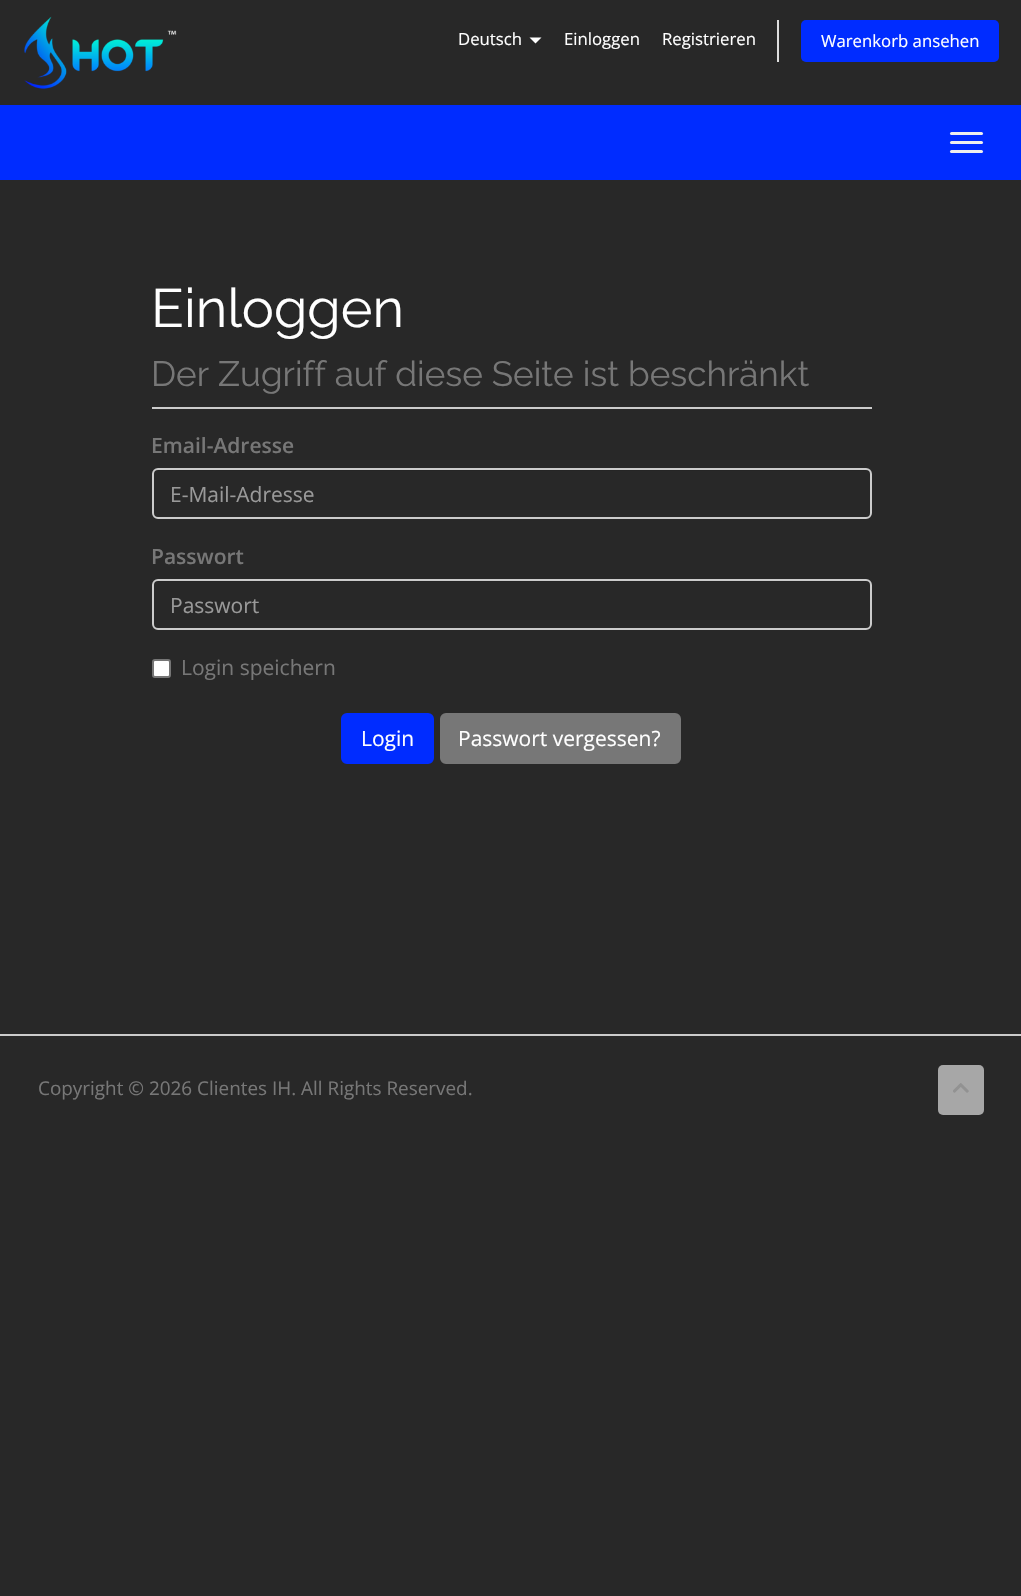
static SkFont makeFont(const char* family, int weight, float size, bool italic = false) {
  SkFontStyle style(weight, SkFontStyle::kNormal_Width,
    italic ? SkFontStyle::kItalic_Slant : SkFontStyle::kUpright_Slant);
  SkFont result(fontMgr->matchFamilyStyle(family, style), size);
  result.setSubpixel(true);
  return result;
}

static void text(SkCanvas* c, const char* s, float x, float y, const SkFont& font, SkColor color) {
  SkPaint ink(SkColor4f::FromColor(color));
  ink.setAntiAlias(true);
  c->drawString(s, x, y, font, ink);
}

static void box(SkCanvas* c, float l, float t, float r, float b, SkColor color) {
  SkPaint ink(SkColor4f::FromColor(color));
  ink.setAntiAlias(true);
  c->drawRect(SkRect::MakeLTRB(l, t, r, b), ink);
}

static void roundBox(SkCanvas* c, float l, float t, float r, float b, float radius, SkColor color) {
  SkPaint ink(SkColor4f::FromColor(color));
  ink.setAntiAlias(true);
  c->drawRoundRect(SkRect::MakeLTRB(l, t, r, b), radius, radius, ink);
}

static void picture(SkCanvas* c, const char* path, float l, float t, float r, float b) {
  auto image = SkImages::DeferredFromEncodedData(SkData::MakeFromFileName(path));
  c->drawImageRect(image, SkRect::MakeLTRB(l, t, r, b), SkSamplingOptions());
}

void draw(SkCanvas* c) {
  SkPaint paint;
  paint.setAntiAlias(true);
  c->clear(0xff282828);
  picture(c, "img_01.png", 24, 16, 177, 89);
  SkFont face1 = makeFont("Open Sans", 400, 16.75f);
  text(c, "Deutsch", 458, 45, face1, 0xffffffff);
  paint.setColor(0xffffffff);
  c->drawPath(SkPathBuilder().moveTo(529.5f, 37.5f).lineTo(541.5f, 37.5f).lineTo(535.5f, 43.5f).close().detach(), paint);
  text(c, "Einloggen", 564, 45, face1, 0xffffffff);
  text(c, "Registrieren", 662, 45, face1, 0xffffffff);
  box(c, 777, 20, 779, 62, 0xffdddddd);
  roundBox(c, 801, 20, 999, 62, 5, 0xff002cff);
  text(c, "Warenkorb ansehen", 821, 47, face1, 0xffffffff);
  box(c, 0, 105, 1021, 180, 0xff002cff);
  roundBox(c, 950, 132, 983, 135, 1.5f, 0xffeeeeee);
  roundBox(c, 950, 141, 983, 144, 1.5f, 0xffeeeeee);
  roundBox(c, 950, 150, 983, 153, 1.5f, 0xffeeeeee);
  box(c, 152, 407, 872, 409, 0xffcccccc);
  SkFont face2 = makeFont("Raleway", 400, 54);
  text(c, "Einloggen", 151, 327, face2, 0xffffffff);
  SkFont face3 = makeFont("Raleway", 400, 35.1f);
  text(c, "Der Zugriff auf diese Seite ist beschränkt", 151, 386, face3, 0xff777777);
  SkFont face4 = makeFont("Open Sans", 600, 21);
  text(c, "Email-Adresse", 151, 453, face4, 0xff777777);
  paint.setColor(0xff252525);
  c->drawPath(SkPathBuilder().moveTo(158, 471).lineTo(866, 471).cubicTo(868, 471, 870, 473, 870, 476).cubicTo(870, 473, 868, 470, 865, 470).lineTo(158, 470).cubicTo(155, 470, 153, 473, 153, 476).cubicTo(153, 473, 155, 471, 158, 471).close().detach(), paint);
  paint.setStyle(SkPaint::kStroke_Style);
  paint.setStrokeWidth(2);
  paint.setColor(0xffcccccc);
  c->drawRoundRect(SkRect::MakeLTRB(153, 469, 871, 518), 5, 5, paint);
  SkFont face5 = makeFont("Open Sans", 400, 21);
  text(c, "E-Mail-Adresse", 170, 502, face5, 0xff999999);
  text(c, "Passwort", 151, 564, face4, 0xff777777);
  paint.setStyle(SkPaint::kFill_Style);
  paint.setColor(0xff252525);
  c->drawPath(SkPathBuilder().moveTo(158, 582).lineTo(866, 582).cubicTo(868, 582, 870, 584, 870, 586).cubicTo(870, 583, 868, 581, 865, 581).lineTo(158, 581).cubicTo(155, 581, 153, 583, 153, 586).cubicTo(153, 584, 155, 582, 158, 582).close().detach(), paint);
  paint.setStyle(SkPaint::kStroke_Style);
  paint.setColor(0xffcccccc);
  c->drawRoundRect(SkRect::MakeLTRB(153, 580, 871, 629), 5, 5, paint);
  text(c, "Passwort", 170, 613, face5, 0xff999999);
  paint.setStyle(SkPaint::kFill_Style);
  paint.setColor(0xffffffff);
  c->drawRoundRect(SkRect::MakeLTRB(153, 660, 170, 677), 2, 2, paint);
  paint.setStyle(SkPaint::kStroke_Style);
  paint.setColor(0xff767676);
  c->drawRoundRect(SkRect::MakeLTRB(153, 660, 170, 677), 2, 2, paint);
  text(c, "Login speichern", 181, 675, face5, 0xff777777);
  paint.setStyle(SkPaint::kFill_Style);
  paint.setColor(0xff002cff);
  c->drawRoundRect(SkRect::MakeLTRB(342, 714, 433, 763), 5, 5, paint);
  paint.setStyle(SkPaint::kStroke_Style);
  c->drawRoundRect(SkRect::MakeLTRB(342, 714, 433, 763), 5, 5, paint);
  text(c, "Login", 361, 746, face5, 0xffffffff);
  paint.setStyle(SkPaint::kFill_Style);
  paint.setColor(0xff777777);
  c->drawRoundRect(SkRect::MakeLTRB(441, 714, 680, 763), 5, 5, paint);
  paint.setStyle(SkPaint::kStroke_Style);
  c->drawRoundRect(SkRect::MakeLTRB(441, 714, 680, 763), 5, 5, paint);
  text(c, "Passwort vergessen?", 458, 746, face5, 0xffffffff);
  box(c, 0, 1034, 1021, 1036, 0xffcccccc);
  SkFont face6 = makeFont("Open Sans", 400, 18.9f);
  text(c, "Copyright © 2026 Clientes IH. All Rights Reserved.", 38, 1095, face6, 0xff777777);
  roundBox(c, 938, 1065, 984, 1115, 5, 0xffa7a7a7);
  picture(c, "img_02.png", 953, 1083, 969, 1093);
}
